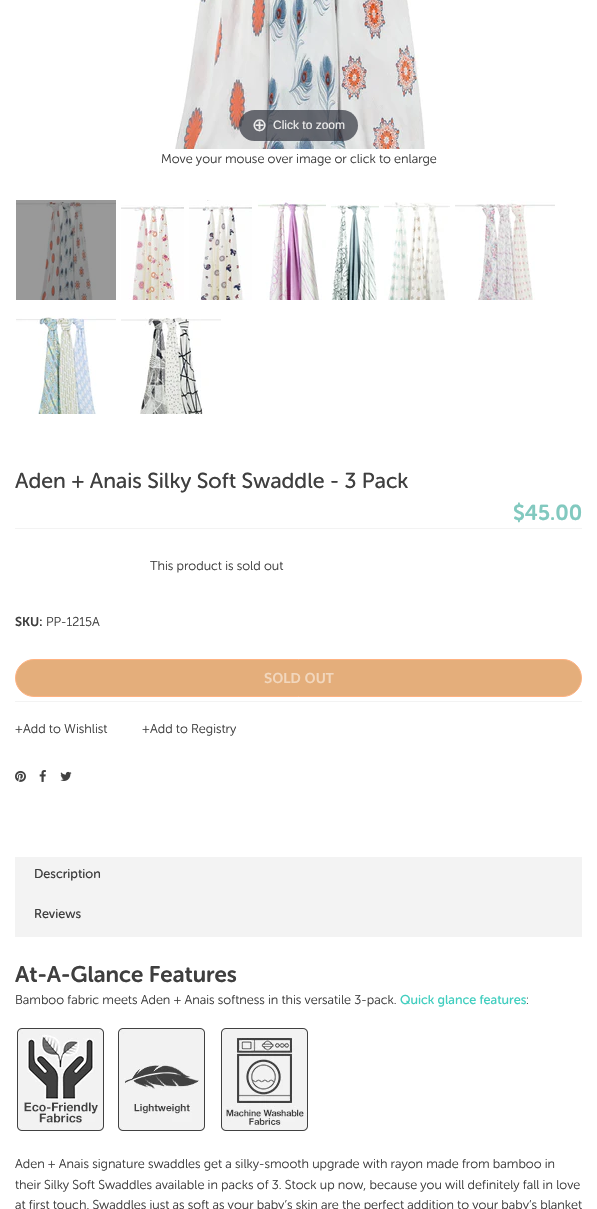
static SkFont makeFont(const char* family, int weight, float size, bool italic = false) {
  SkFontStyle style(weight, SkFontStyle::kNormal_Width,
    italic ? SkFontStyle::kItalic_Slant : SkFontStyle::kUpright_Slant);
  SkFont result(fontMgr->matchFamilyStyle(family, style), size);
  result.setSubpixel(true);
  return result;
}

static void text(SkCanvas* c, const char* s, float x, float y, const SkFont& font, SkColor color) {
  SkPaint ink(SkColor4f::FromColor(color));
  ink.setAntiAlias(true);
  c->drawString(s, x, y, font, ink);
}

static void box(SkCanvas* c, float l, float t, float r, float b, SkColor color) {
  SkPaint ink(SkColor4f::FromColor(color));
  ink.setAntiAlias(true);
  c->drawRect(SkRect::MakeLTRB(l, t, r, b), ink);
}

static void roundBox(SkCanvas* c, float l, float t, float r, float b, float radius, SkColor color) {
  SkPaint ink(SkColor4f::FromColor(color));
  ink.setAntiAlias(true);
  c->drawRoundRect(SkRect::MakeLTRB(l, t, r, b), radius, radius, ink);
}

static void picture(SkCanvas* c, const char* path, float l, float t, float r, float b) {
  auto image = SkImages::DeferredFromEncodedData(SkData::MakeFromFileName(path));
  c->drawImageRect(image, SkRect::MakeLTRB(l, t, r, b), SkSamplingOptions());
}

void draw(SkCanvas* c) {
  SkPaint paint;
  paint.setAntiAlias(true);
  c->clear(0xffffffff);
  picture(c, "img_01.png", 175, 0, 425, 149);
  roundBox(c, 239, 110, 358, 141, 15.5f, 0xb331333d);
  SkFont face1 = makeFont("DejaVu Sans", 400, 18);
  text(c, "⊕", 252, 131, face1, 0xffeeeeee);
  SkFont face2 = makeFont("Liberation Sans", 400, 12);
  text(c, "Click to zoom", 273, 129, face2, 0xffeeeeee);
  SkFont face3 = makeFont("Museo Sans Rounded", 300, 12.8f);
  text(c, "Move your mouse over image or click to enlarge", 161, 163, face3, 0xff3f3f3f);
  picture(c, "img_02.png", 16, 200, 116, 300);
  picture(c, "img_03.png", 121, 205, 184, 300);
  picture(c, "img_04.png", 189, 200, 252, 300);
  picture(c, "img_05.png", 258, 200, 326, 300);
  picture(c, "img_06.png", 331, 204, 379, 300);
  picture(c, "img_07.png", 384, 202, 450, 300);
  picture(c, "img_08.png", 455, 200, 555, 300);
  picture(c, "img_09.png", 16, 316, 116, 414);
  picture(c, "img_10.png", 121, 317, 221, 414);
  SkFont face4 = makeFont("Museo Sans Rounded", 400, 21.6f);
  text(c, "Aden + Anais Silky Soft Swaddle - 3 Pack", 15, 488, face4, 0xff3f3f3f);
  box(c, 15, 528, 582, 529, 0xfff3f3f3);
  SkFont face5 = makeFont("Museo Sans Rounded", 600, 21.6f);
  text(c, "$45.00", 513, 520, face5, 0xff82c9bf);
  text(c, "This product is sold out", 150, 570, face3, 0xff3f3f3f);
  SkFont face6 = makeFont("Museo Sans Rounded", 600, 12.8f);
  text(c, "SKU:", 15, 626, face6, 0xff3f3f3f);
  text(c, "PP-1215A", 46, 626, face3, 0xff3f3f3f);
  paint.setColor(0xffe4ae7b);
  c->drawRoundRect(SkRect::MakeLTRB(15.5f, 659.5f, 581.5f, 696.5f), 18.5f, 18.5f, paint);
  paint.setStyle(SkPaint::kStroke_Style);
  paint.setStrokeWidth(1);
  paint.setColor(0xffffb281);
  c->drawRoundRect(SkRect::MakeLTRB(15.5f, 659.5f, 581.5f, 696.5f), 18.5f, 18.5f, paint);
  SkFont face7 = makeFont("Oxygen", 700, 14);
  text(c, "SOLD OUT", 264, 683, face7, 0xfff2d7bd);
  box(c, 15, 701, 582, 702, 0xfff3f3f3);
  text(c, "+", 15, 733, face3, 0xff3f3f3f);
  text(c, "Add to Wishlist", 23, 733, face3, 0xff3f3f3f);
  text(c, "+", 142, 733, face3, 0xff3f3f3f);
  text(c, "Add to Registry", 150, 733, face3, 0xff3f3f3f);
  picture(c, "img_11.png", 15, 770, 26, 782);
  picture(c, "img_12.png", 39, 770, 46, 782);
  picture(c, "img_13.png", 60, 771, 72, 781);
  box(c, 15, 857, 582, 937, 0xfff3f3f3);
  SkFont face8 = makeFont("Museo Sans Rounded", 400, 12.8f);
  text(c, "Description", 34, 878, face8, 0xff3f3f3f);
  text(c, "Reviews", 34, 918, face8, 0xff3f3f3f);
  SkFont face9 = makeFont("Museo Sans Rounded", 600, 22.5f);
  text(c, "At-A-Glance Features", 15, 982, face9, 0xff3f3f3f);
  text(c, "Bamboo fabric meets Aden + Anais softness in this versatile 3-pack.", 15, 1004, face3, 0xff3f3f3f);
  text(c, "Quick glance features", 400, 1004, face8, 0xff41cebf);
  text(c, ":", 526, 1004, face3, 0xff3f3f3f);
  picture(c, "img_14.png", 17, 1028, 104, 1131);
  picture(c, "img_15.png", 118, 1028, 205, 1131);
  picture(c, "img_16.png", 221, 1028, 308, 1131);
  text(c, "Aden + Anais signature swaddles get a silky-smooth upgrade with rayon made from bamboo in", 15, 1168, face3, 0xff3f3f3f);
  text(c, "their Silky Soft Swaddles available in packs of 3. Stock up now, because you will definitely fall in love", 15, 1189, face3, 0xff3f3f3f);
  text(c, "at first touch. Swaddles just as soft as your baby’s skin are the perfect addition to your baby’s blanket", 15, 1209, face3, 0xff3f3f3f);
}
